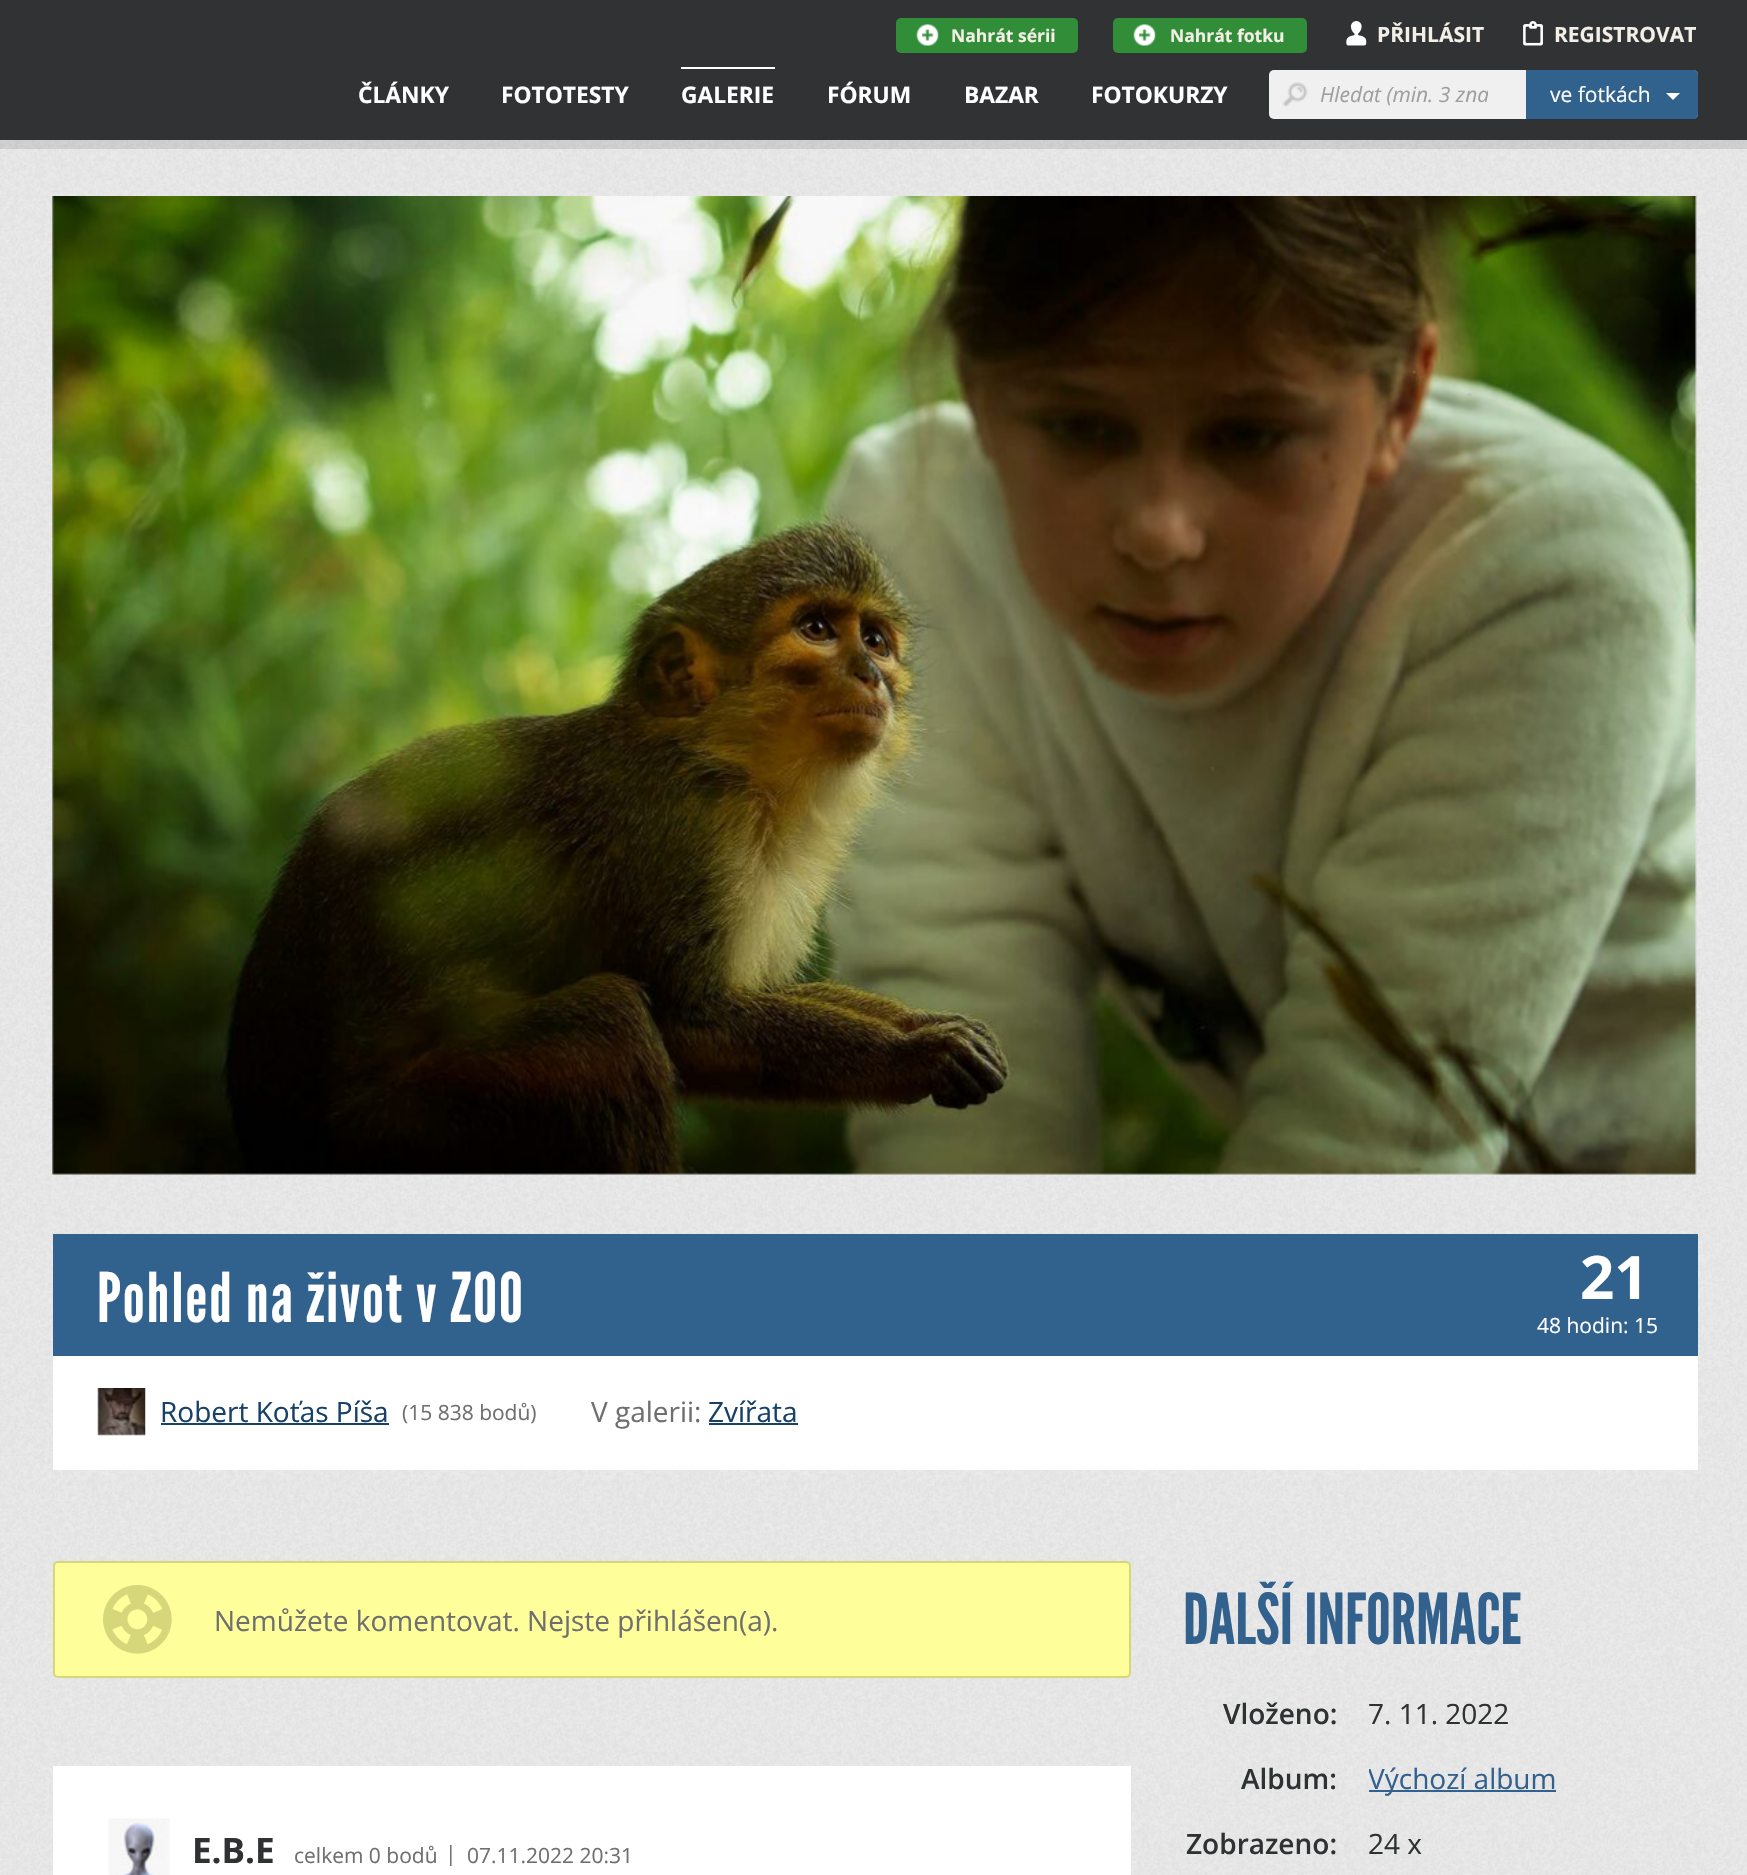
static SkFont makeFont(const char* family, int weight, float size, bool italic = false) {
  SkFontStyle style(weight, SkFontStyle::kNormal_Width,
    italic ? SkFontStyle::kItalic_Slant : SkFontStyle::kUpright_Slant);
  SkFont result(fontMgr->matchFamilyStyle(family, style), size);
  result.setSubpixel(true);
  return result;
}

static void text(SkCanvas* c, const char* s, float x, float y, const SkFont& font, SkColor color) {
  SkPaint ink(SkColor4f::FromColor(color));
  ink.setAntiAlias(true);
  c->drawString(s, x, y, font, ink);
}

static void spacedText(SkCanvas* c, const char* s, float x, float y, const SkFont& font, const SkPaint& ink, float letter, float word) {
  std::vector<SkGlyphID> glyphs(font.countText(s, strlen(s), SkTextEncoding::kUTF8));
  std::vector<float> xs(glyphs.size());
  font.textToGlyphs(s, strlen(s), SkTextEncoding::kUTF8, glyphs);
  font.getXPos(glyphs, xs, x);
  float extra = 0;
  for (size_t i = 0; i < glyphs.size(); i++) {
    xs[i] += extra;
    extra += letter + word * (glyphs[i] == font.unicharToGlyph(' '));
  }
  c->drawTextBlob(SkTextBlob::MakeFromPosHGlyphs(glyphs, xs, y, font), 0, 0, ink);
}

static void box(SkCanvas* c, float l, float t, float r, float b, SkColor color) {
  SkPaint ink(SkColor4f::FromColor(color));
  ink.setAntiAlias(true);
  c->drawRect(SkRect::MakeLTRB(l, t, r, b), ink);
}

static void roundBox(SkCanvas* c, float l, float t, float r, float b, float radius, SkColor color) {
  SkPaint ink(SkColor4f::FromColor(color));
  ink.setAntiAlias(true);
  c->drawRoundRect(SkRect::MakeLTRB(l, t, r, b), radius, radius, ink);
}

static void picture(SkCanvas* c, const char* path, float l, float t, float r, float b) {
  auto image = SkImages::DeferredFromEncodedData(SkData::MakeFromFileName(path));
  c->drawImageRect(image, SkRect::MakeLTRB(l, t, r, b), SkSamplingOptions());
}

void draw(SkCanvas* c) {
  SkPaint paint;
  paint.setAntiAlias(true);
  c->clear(0xffffffff);
  picture(c, "img_01.png", 0, 140, 1747, 1875);
  box(c, 0, 0, 1747, 140, 0xff303234);
  roundBox(c, 896, 18, 1078, 53, 5, 0xff328d38);
  picture(c, "img_02.png", 916, 24, 939, 46);
  SkFont face1 = makeFont("Open Sans", 700, 17.5f);
  text(c, "Nahrát sérii", 951, 42, face1, 0xfff3efe7);
  roundBox(c, 1113, 18, 1307, 53, 5, 0xff328d38);
  picture(c, "img_03.png", 1133, 24, 1156, 46);
  text(c, "Nahrát fotku", 1170, 42, face1, 0xfff3efe7);
  picture(c, "img_04.png", 1346, 21, 1367, 46);
  SkFont face2 = makeFont("Open Sans", 700, 21);
  text(c, "PŘIHLÁSIT", 1377, 42, face2, 0xfff3efe7);
  picture(c, "img_05.png", 1523, 21, 1543, 46);
  text(c, "REGISTROVAT", 1554, 42, face2, 0xfff3efe7);
  SkFont face3 = makeFont("Open Sans", 700, 22.75f);
  text(c, "ČLÁNKY", 358, 103, face3, 0xffffffff);
  text(c, "FOTOTESTY", 501, 103, face3, 0xffffffff);
  text(c, "GALERIE", 681, 103, face3, 0xffffffff);
  box(c, 681, 67, 775, 69, 0xffffffff);
  text(c, "FÓRUM", 827, 103, face3, 0xffffffff);
  text(c, "BAZAR", 964, 103, face3, 0xffffffff);
  text(c, "FOTOKURZY", 1091, 103, face3, 0xffffffff);
  roundBox(c, 1269, 70, 1698, 119, 5, 0xfff0f0f0);
  picture(c, "img_06.png", 1282, 82, 1308, 107);
  c->save();
  c->clipRect(SkRect::MakeLTRB(1321, 81, 1488, 110));
  SkFont face4 = makeFont("Open Sans", 400, 21, true);
  text(c, "Hledat (min. 3 zna", 1320, 102, face4, 0xff9f9f9f);
  c->restore();
  paint.setColor(0xff31618d);
  c->drawPath(SkPathBuilder().moveTo(1526, 70).lineTo(1693, 70).cubicTo(1696, 70, 1698, 72, 1698, 75).lineTo(1698, 114).cubicTo(1698, 117, 1696, 119, 1693, 119).lineTo(1526, 119).close().detach(), paint);
  SkFont face5 = makeFont("Open Sans", 400, 21);
  text(c, "ve fotkách", 1550, 102, face5, 0xffffffff);
  paint.setColor(0xffffffff);
  c->drawPath(SkPathBuilder().moveTo(1666, 93).lineTo(1680, 93).lineTo(1673, 100).close().detach(), paint);
  box(c, 0, 140, 1747, 149, 0x1a000000);
  picture(c, "img_07.png", 52, 196, 1697, 1175);
  box(c, 53, 1234, 1698, 1356, 0xff31618d);
  SkFont face6 = makeFont("League Gothic", 400, 68.25f);
  spacedText(c, "Pohled na život v ZOO", 97, 1322, face6, paint, 1.75f, 0);
  SkFont face7 = makeFont("Open Sans", 700, 60);
  text(c, "21", 1580, 1299, face7, 0xffffffff);
  text(c, "48 hodin: 15", 1537, 1333, face5, 0xffffffff);
  box(c, 53, 1356, 1698, 1470, 0xffffffff);
  picture(c, "img_08.png", 97, 1388, 146, 1436);
  SkFont face8 = makeFont("Open Sans", 400, 28);
  text(c, "Robert Koťas Píša", 160, 1422, face8, 0xff184169);
  box(c, 161, 1423, 389, 1425, 0xff184169);
  text(c, "(15 838 bodů)", 402, 1420, face5, 0xff6f6f6f);
  text(c, "V galerii:", 591, 1422, face8, 0xff6f6f6f);
  text(c, "Zvířata", 708, 1422, face8, 0xff184169);
  box(c, 709, 1423, 798, 1425, 0xff184169);
  paint.setColor(0xfffeff9a);
  c->drawRoundRect(SkRect::MakeLTRB(54, 1562, 1130, 1677), 4, 4, paint);
  paint.setStyle(SkPaint::kStroke_Style);
  paint.setStrokeWidth(2);
  paint.setColor(0xffd6d77a);
  c->drawRoundRect(SkRect::MakeLTRB(54, 1562, 1130, 1677), 4, 4, paint);
  picture(c, "img_09.png", 103, 1585, 172, 1654);
  text(c, "Nemůžete komentovat. Nejste přihlášen(a).", 214, 1631, face8, 0xff6f6f6f);
  box(c, 53, 1766, 1131, 1875, 0xffffffff);
  picture(c, "img_10.png", 108, 1818, 170, 1875);
  SkFont face9 = makeFont("Open Sans", 700, 35);
  text(c, "E.B.E", 192, 1863, face9, 0xff2f3233);
  text(c, "celkem 0 bodů", 294, 1863, face5, 0xff6f6f6f);
  text(c, "|", 445, 1861, face5, 0xff6f6f6f);
  text(c, "07.11.2022 20:31", 467, 1863, face5, 0xff6f6f6f);
  SkFont face10 = makeFont("League Gothic", 400, 70);
  text(c, "DALŠÍ INFORMACE", 1183, 1644, face10, 0xff32618d);
  SkFont face11 = makeFont("Open Sans", 600, 28);
  text(c, "Vloženo:", 1223, 1724, face11, 0xff2f3233);
  text(c, "7. 11. 2022", 1368, 1724, face8, 0xff2f3233);
  text(c, "Album:", 1241, 1789, face11, 0xff2f3233);
  box(c, 1369, 1790, 1556, 1792, 0xff32618d);
  c->save();
  c->clipRect(SkRect::MakeLTRB(1369, 1757, 1696, 1799));
  text(c, "Výchozí album", 1368, 1789, face8, 0xff32618d);
  c->restore();
  text(c, "Zobrazeno:", 1186, 1854, face11, 0xff2f3233);
  text(c, "24 x", 1368, 1854, face8, 0xff2f3233);
}
